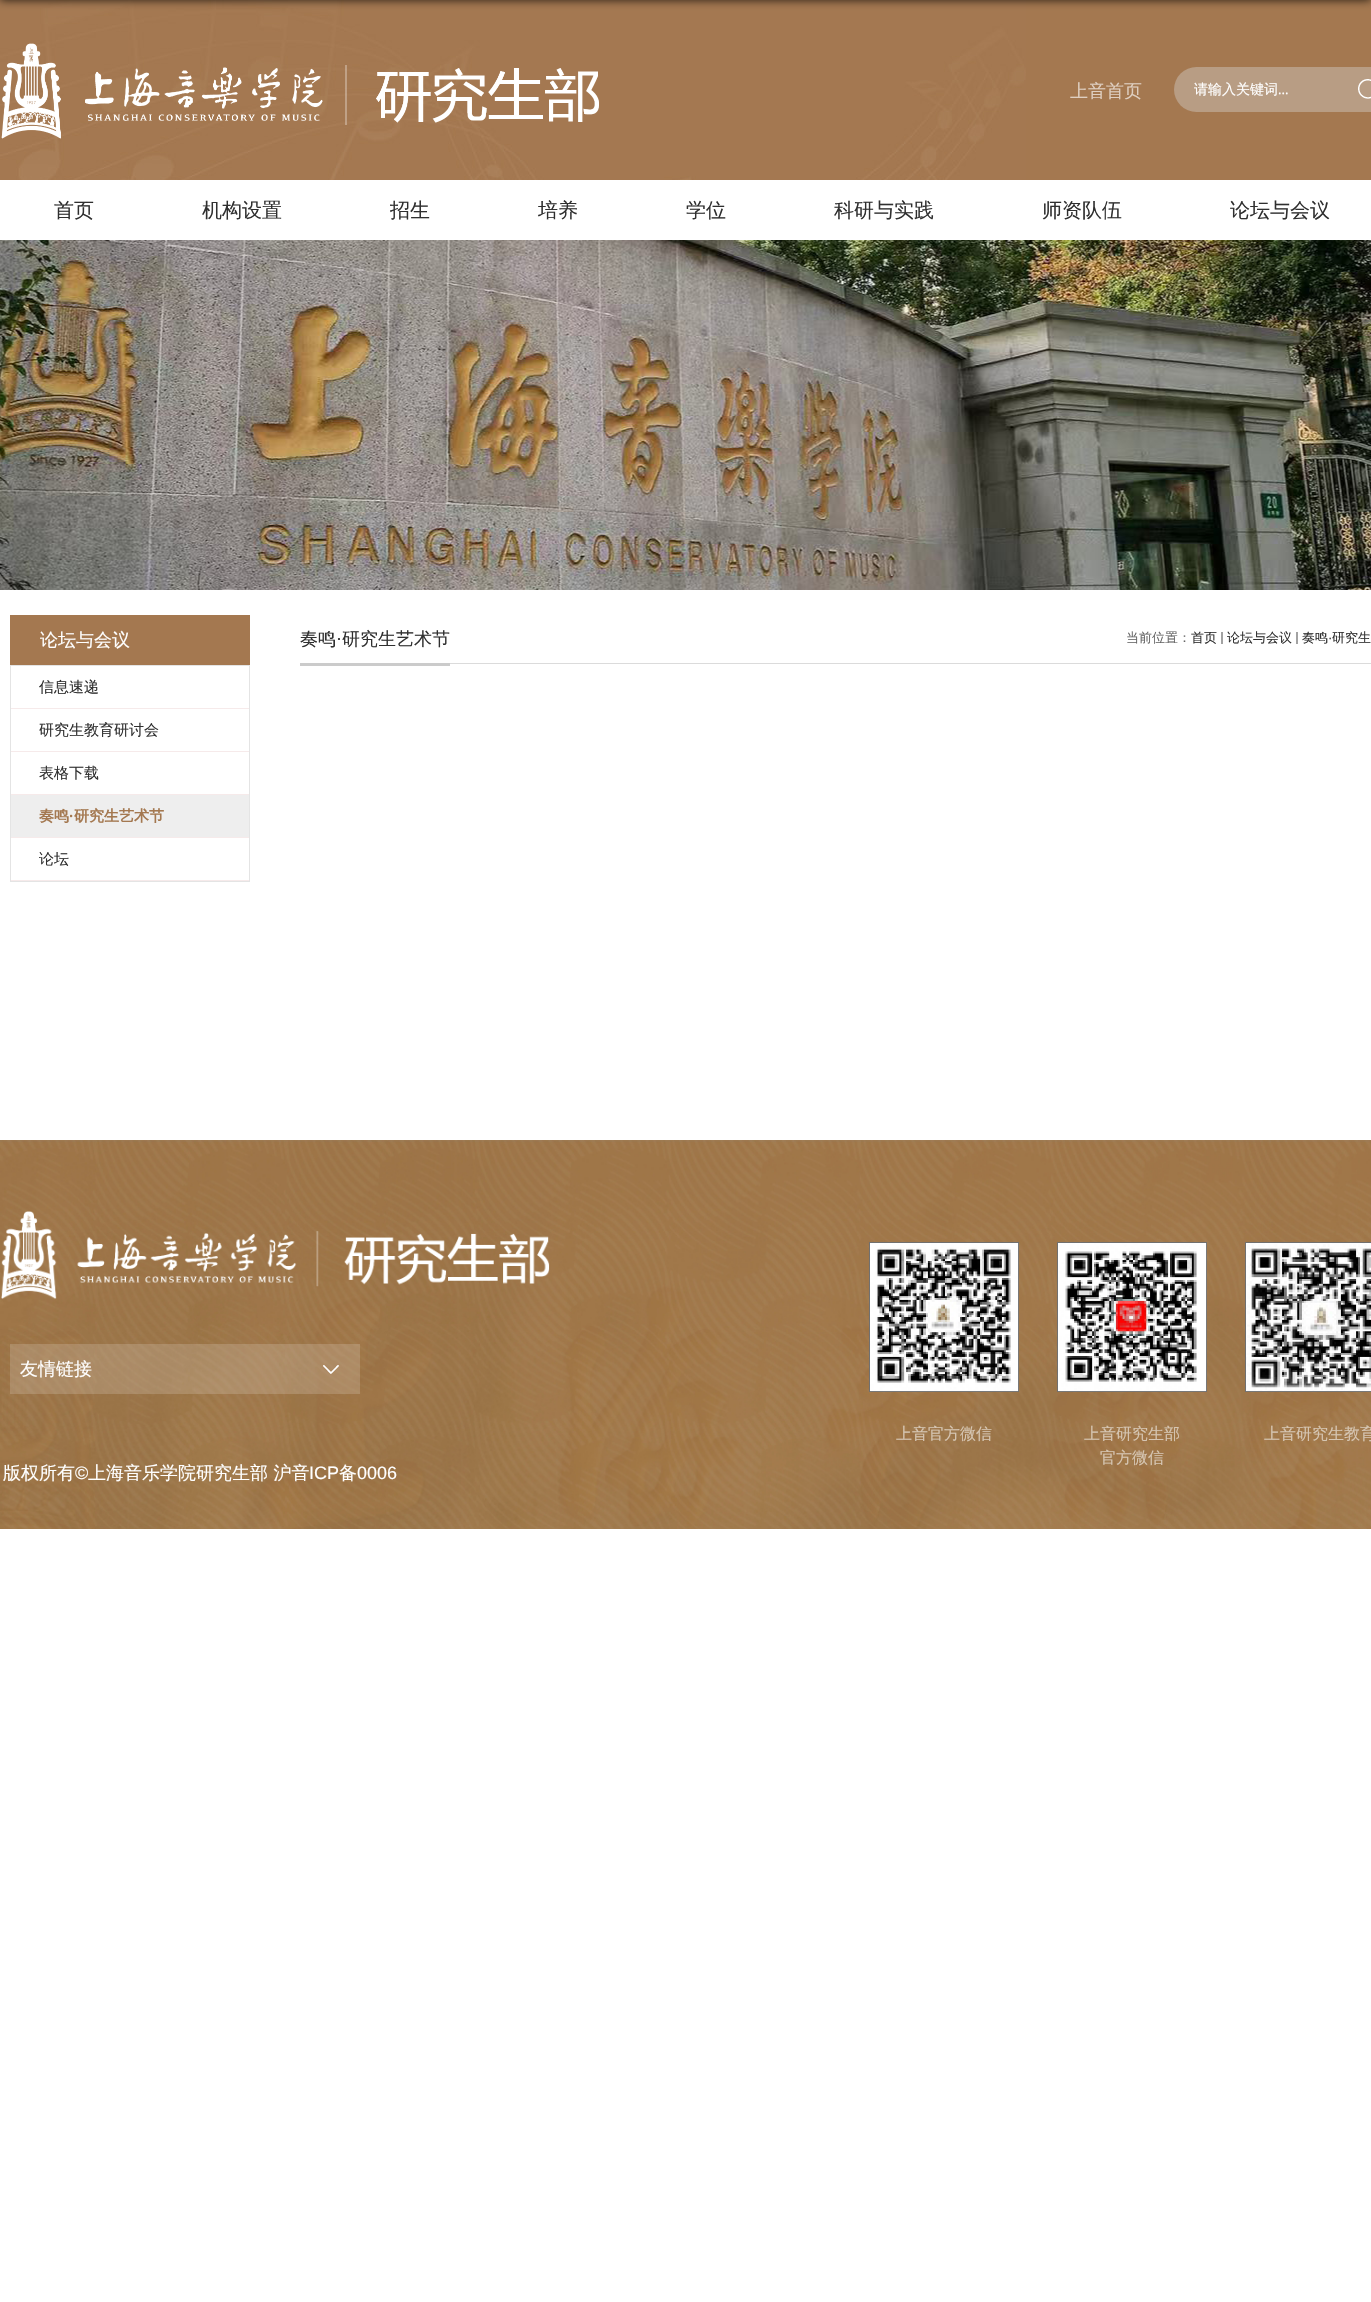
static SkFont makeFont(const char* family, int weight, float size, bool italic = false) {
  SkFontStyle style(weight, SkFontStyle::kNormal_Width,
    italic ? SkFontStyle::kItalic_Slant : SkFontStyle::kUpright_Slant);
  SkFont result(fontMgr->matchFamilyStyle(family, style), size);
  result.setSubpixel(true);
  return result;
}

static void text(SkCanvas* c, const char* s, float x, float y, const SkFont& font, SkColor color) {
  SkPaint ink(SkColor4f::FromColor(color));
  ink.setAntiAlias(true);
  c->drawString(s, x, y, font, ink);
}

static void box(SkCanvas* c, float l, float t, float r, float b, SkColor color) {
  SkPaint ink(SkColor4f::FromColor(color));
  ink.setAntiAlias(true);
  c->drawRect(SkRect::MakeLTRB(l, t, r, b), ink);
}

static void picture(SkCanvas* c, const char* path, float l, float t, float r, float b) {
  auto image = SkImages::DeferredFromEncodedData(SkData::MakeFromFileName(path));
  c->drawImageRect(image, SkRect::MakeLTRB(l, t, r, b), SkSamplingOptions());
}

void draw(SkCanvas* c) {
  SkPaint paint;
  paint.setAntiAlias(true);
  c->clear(0xffffffff);
  box(c, 1026, 0, 1371, 180, 0xffa47850);
  picture(c, "img_01.png", 0, 0, 1026, 180);
  paint.setColor(0xcc000000);
  paint.setMaskFilter(SkMaskFilter::MakeBlur(kNormal_SkBlurStyle, 5));
  c->drawRect(SkRect::MakeLTRB(0, -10, 1371, 0), paint);
  paint.setMaskFilter(nullptr);
  picture(c, "img_02.png", 1, 43, 599, 139);
  SkFont face1 = makeFont("WenQuanYi Zen Hei", 500, 18);
  text(c, "上音首页", 1070, 97, face1, 0xffdfcfc1);
  picture(c, "img_03.png", 1174, 67, 1371, 112);
  SkFont face2 = makeFont("WenQuanYi Zen Hei", 500, 14);
  text(c, "请输入关键词", 1194, 94, face2, 0xffffffff);
  SkFont face3 = makeFont("Liberation Serif", 400, 14);
  text(c, "...", 1278, 94, face3, 0xffffffff);
  picture(c, "img_04.png", 1358, 79, 1371, 99);
  SkFont face4 = makeFont("WenQuanYi Zen Hei", 500, 20);
  text(c, "首页", 54, 217, face4, 0xff2f2f2f);
  text(c, "机构设置", 202, 217, face4, 0xff2f2f2f);
  text(c, "招生", 390, 217, face4, 0xff2f2f2f);
  text(c, "培养", 538, 217, face4, 0xff2f2f2f);
  text(c, "学位", 686, 217, face4, 0xff2f2f2f);
  text(c, "科研与实践", 834, 217, face4, 0xff2f2f2f);
  text(c, "师资队伍", 1042, 217, face4, 0xff2f2f2f);
  text(c, "论坛与会议", 1230, 217, face4, 0xff2f2f2f);
  picture(c, "img_05.png", 0, 240, 1371, 590);
  box(c, 10, 615, 250, 665, 0xffa47850);
  text(c, "论坛与会议", 40, 646, face1, 0xffffffff);
  paint.setStyle(SkPaint::kStroke_Style);
  paint.setStrokeWidth(1);
  paint.setColor(0xffe4e4e4);
  c->drawRect(SkRect::MakeLTRB(10.5f, 665.5f, 249.5f, 881.5f), paint);
  box(c, 11, 708, 249, 709, 0xfff6eaea);
  SkFont face5 = makeFont("WenQuanYi Zen Hei", 500, 15);
  text(c, "信息速递", 39, 692, face5, 0xff2f2f2f);
  box(c, 11, 751, 249, 752, 0xfff6eaea);
  text(c, "研究生教育研讨会", 39, 735, face5, 0xff2f2f2f);
  box(c, 11, 794, 249, 795, 0xfff6eaea);
  text(c, "表格下载", 39, 778, face5, 0xff2f2f2f);
  box(c, 11, 795, 249, 837, 0xffeeeeee);
  box(c, 11, 837, 249, 838, 0xfff6eaea);
  SkFont face6 = makeFont("WenQuanYi Zen Hei", 700, 15);
  text(c, "奏鸣", 39, 821, face6, 0xffa47850);
  SkFont face7 = makeFont("Liberation Sans", 700, 15);
  text(c, "·", 69, 821, face7, 0xffa47850);
  text(c, "研究生艺术节", 74, 821, face6, 0xffa47850);
  box(c, 11, 880, 249, 881, 0xfff6eaea);
  text(c, "论坛", 39, 864, face5, 0xff2f2f2f);
  box(c, 450, 663, 1371, 664, 0xffdbdbdb);
  box(c, 300, 663, 450, 666, 0xffcbcbcb);
  text(c, "奏鸣", 300, 645, face1, 0xff2f2f2f);
  SkFont face8 = makeFont("Liberation Serif", 400, 18);
  text(c, "·", 336, 645, face8, 0xff2f2f2f);
  text(c, "研究生艺术节", 342, 645, face1, 0xff2f2f2f);
  SkFont face9 = makeFont("WenQuanYi Zen Hei", 500, 13);
  text(c, "当前位置：", 1126, 642, face9, 0xff666666);
  text(c, "首页", 1191, 642, face9, 0xff2f2f2f);
  box(c, 1221, 632, 1223, 644, 0xffa2a2a2);
  text(c, "论坛与会议", 1227, 642, face9, 0xff2f2f2f);
  box(c, 1296, 632, 1298, 644, 0xffa2a2a2);
  text(c, "奏鸣", 1302, 642, face9, 0xff2f2f2f);
  SkFont face10 = makeFont("Liberation Sans", 400, 13);
  text(c, "·", 1328, 642, face10, 0xff2f2f2f);
  text(c, "研究生", 1332, 642, face9, 0xff2f2f2f);
  picture(c, "img_06.png", 0, 1140, 1371, 1529);
  picture(c, "img_07.png", 1, 1211, 550, 1299);
  box(c, 10, 1344, 360, 1394, 0x29ffffff);
  picture(c, "img_08.png", 323, 1365, 339, 1374);
  text(c, "友情链接", 20, 1375, face1, 0xffffffff);
  text(c, "版权所有", 3, 1479, face1, 0xffffffff);
  SkFont face11 = makeFont("Liberation Sans", 400, 18);
  text(c, "©", 75, 1479, face11, 0xffffffff);
  text(c, "上海音乐学院研究生部 沪音", 88, 1479, face1, 0xffffffff);
  text(c, "ICP", 309, 1479, face11, 0xffffffff);
  text(c, "备", 339, 1479, face1, 0xffffffff);
  text(c, "0006", 357, 1479, face11, 0xffffffff);
  picture(c, "img_09.png", 869, 1242, 1019, 1392);
  SkFont face12 = makeFont("WenQuanYi Zen Hei", 500, 16);
  text(c, "上音官方微信", 896, 1439, face12, 0xffd6c6b3);
  picture(c, "img_10.png", 1057, 1242, 1207, 1392);
  text(c, "上音研究生部", 1084, 1439, face12, 0xffd6c6b3);
  text(c, "官方微信", 1100, 1463, face12, 0xffd6c6b3);
  picture(c, "img_11.png", 1245, 1242, 1371, 1392);
  text(c, "上音研究生教育", 1264, 1439, face12, 0xffd6c6b3);
}
